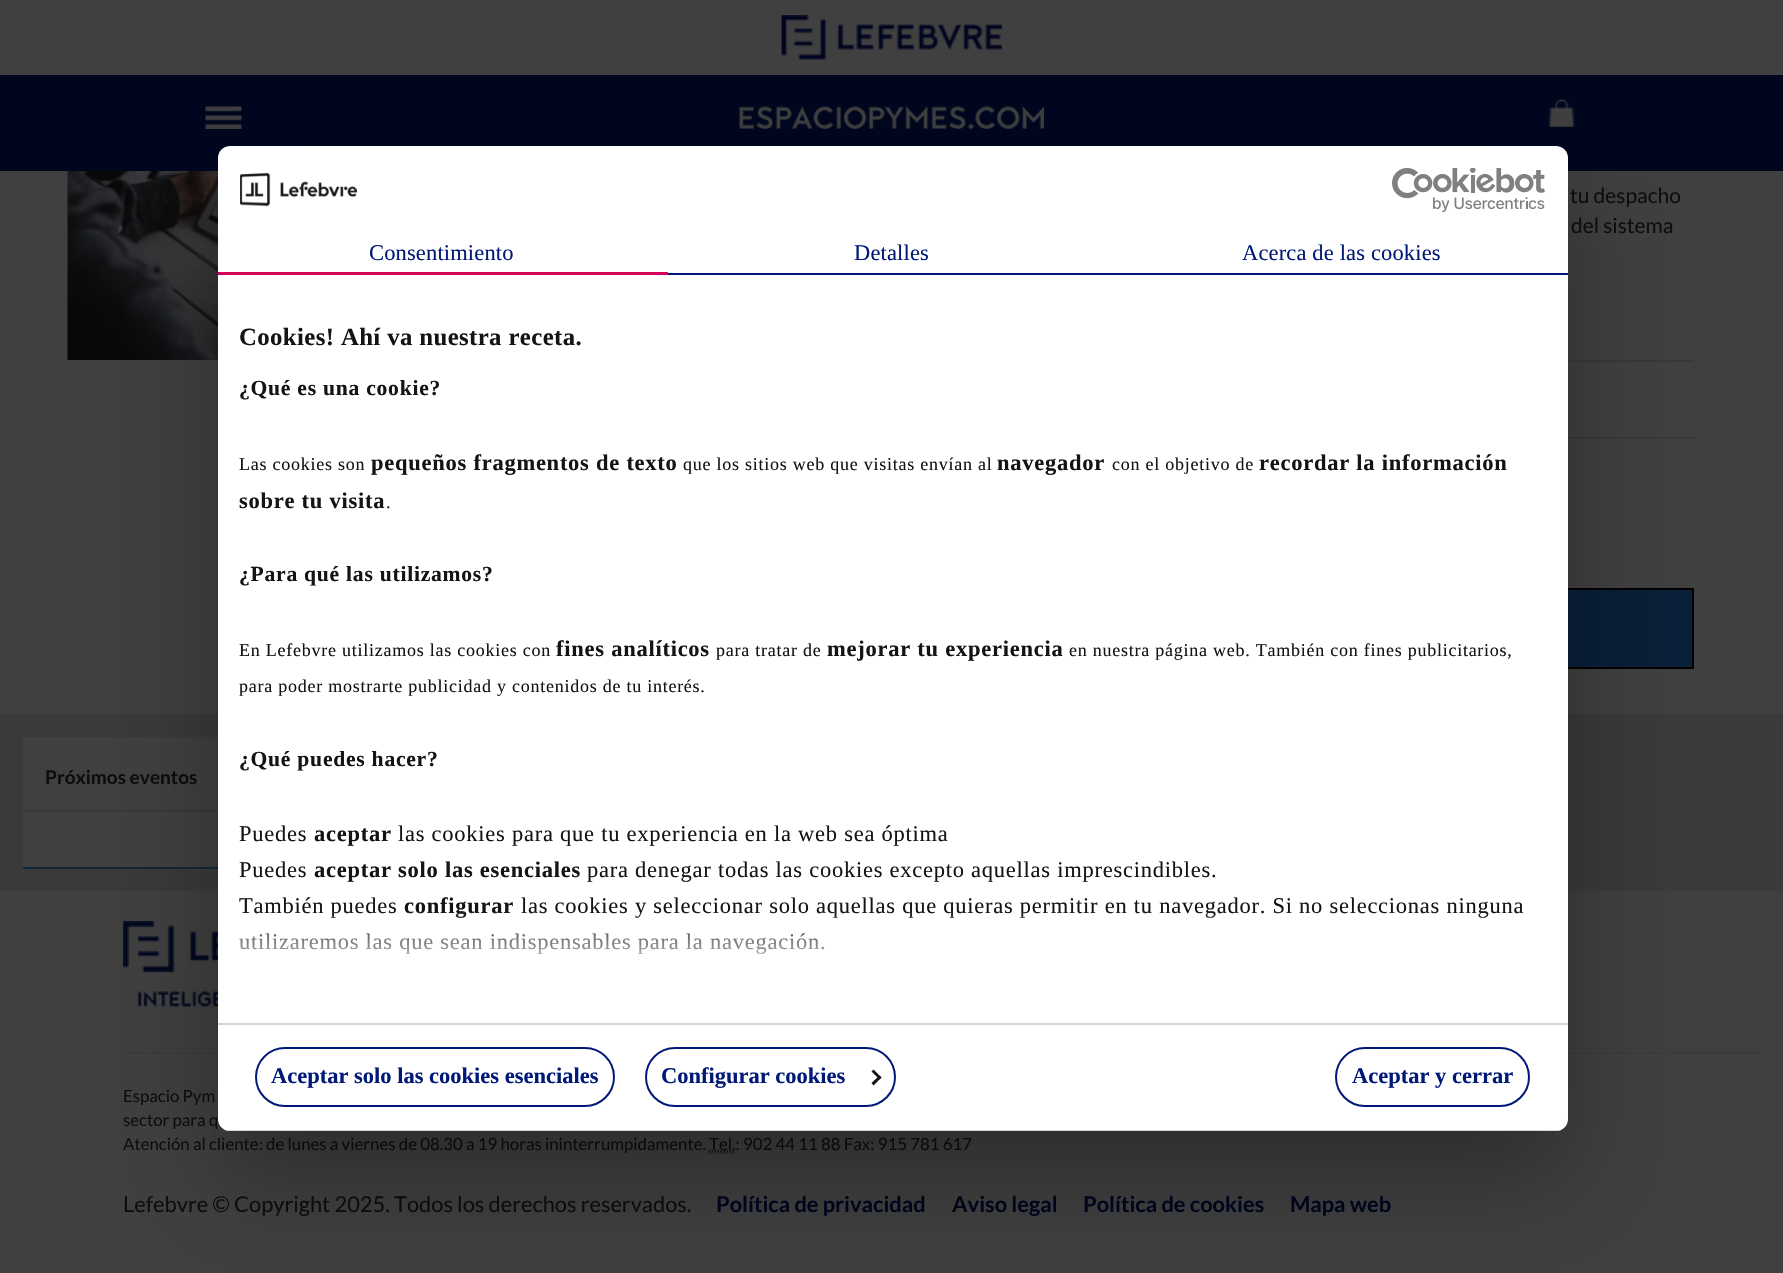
static SkFont makeFont(const char* family, int weight, float size, bool italic = false) {
  SkFontStyle style(weight, SkFontStyle::kNormal_Width,
    italic ? SkFontStyle::kItalic_Slant : SkFontStyle::kUpright_Slant);
  SkFont result(fontMgr->matchFamilyStyle(family, style), size);
  result.setSubpixel(true);
  return result;
}

static void text(SkCanvas* c, const char* s, float x, float y, const SkFont& font, SkColor color) {
  SkPaint ink(SkColor4f::FromColor(color));
  ink.setAntiAlias(true);
  c->drawString(s, x, y, font, ink);
}

static void spacedText(SkCanvas* c, const char* s, float x, float y, const SkFont& font, const SkPaint& ink, float letter, float word) {
  std::vector<SkGlyphID> glyphs(font.countText(s, strlen(s), SkTextEncoding::kUTF8));
  std::vector<float> xs(glyphs.size());
  font.textToGlyphs(s, strlen(s), SkTextEncoding::kUTF8, glyphs);
  font.getXPos(glyphs, xs, x);
  float extra = 0;
  for (size_t i = 0; i < glyphs.size(); i++) {
    xs[i] += extra;
    extra += letter + word * (glyphs[i] == font.unicharToGlyph(' '));
  }
  c->drawTextBlob(SkTextBlob::MakeFromPosHGlyphs(glyphs, xs, y, font), 0, 0, ink);
}

static void box(SkCanvas* c, float l, float t, float r, float b, SkColor color) {
  SkPaint ink(SkColor4f::FromColor(color));
  ink.setAntiAlias(true);
  c->drawRect(SkRect::MakeLTRB(l, t, r, b), ink);
}

static void roundBox(SkCanvas* c, float l, float t, float r, float b, float radius, SkColor color) {
  SkPaint ink(SkColor4f::FromColor(color));
  ink.setAntiAlias(true);
  c->drawRoundRect(SkRect::MakeLTRB(l, t, r, b), radius, radius, ink);
}

static void picture(SkCanvas* c, const char* path, float l, float t, float r, float b) {
  auto image = SkImages::DeferredFromEncodedData(SkData::MakeFromFileName(path));
  c->drawImageRect(image, SkRect::MakeLTRB(l, t, r, b), SkSamplingOptions());
}

void draw(SkCanvas* c) {
  SkPaint paint;
  paint.setAntiAlias(true);
  c->clear(0xff3a3a3a);
  box(c, 0, 0, 1783, 75, 0xff404040);
  picture(c, "img_01.png", 781, 15, 1002, 60);
  box(c, 0, 75, 1783, 171, 0xff00061e);
  picture(c, "img_02.png", 205, 106, 242, 129);
  picture(c, "img_03.png", 739, 106, 1044, 129);
  picture(c, "img_04.png", 1548, 99, 1575, 127);
  box(c, 0, 171, 1783, 714, 0xff404040);
  picture(c, "img_05.png", 67, 171, 218, 360);
  SkFont face1 = makeFont("Lato", 400, 21);
  text(c, "tu despacho", 1570, 203, face1, 0xff0d0d0d);
  text(c, "del sistema", 1571, 233, face1, 0xff0d0d0d);
  box(c, 1568, 360, 1694, 362, 0xff383838);
  box(c, 1568, 437, 1694, 439, 0xff383838);
  box(c, 1568, 590, 1692, 667, 0xff092038);
  paint.setStyle(SkPaint::kStroke_Style);
  paint.setStrokeWidth(2);
  paint.setColor(0xff000000);
  c->drawRect(SkRect::MakeLTRB(594, 589, 1693, 668), paint);
  box(c, 23, 737, 218, 867, 0xff404040);
  box(c, 23, 867, 218, 869, 0xff122837);
  box(c, 23, 810, 218, 812, 0xff383838);
  SkFont face2 = makeFont("Lato", 700, 19);
  text(c, "Próximos eventos", 45, 784, face2, 0xff0d0d0d);
  box(c, 0, 891, 1783, 1273, 0xff404040);
  picture(c, "img_06.png", 123, 921, 218, 1007);
  box(c, 123, 1052, 1761, 1054, 0xff3c3c3c);
  SkFont face3 = makeFont("Lato", 400, 16.8f);
  text(c, "Espacio Pym", 123, 1102, face3, 0xff0d0d0d);
  text(c, "sector para q", 123, 1126, face3, 0xff0d0d0d);
  text(c, "Atención al cliente: de lunes a viernes de 08.30 a 19 horas ininterrumpidamente.", 123, 1150, face3, 0xff0d0d0d);
  paint.setStrokeWidth(1.5f);
  paint.setColor(0xff0d0d0d);
  paint.setPathEffect(SkDashPathEffect::Make({{1.5f, 1.5f}}, 0));
  c->drawPath(SkPathBuilder().moveTo(708.5f, 1151).lineTo(735, 1151).detach(), paint);
  paint.setPathEffect(nullptr);
  text(c, "Tel.: 902 44 11 88 Fax: 915 781 617", 709, 1150, face3, 0xff0d0d0d);
  paint.setColor(0xff1e1e1e);
  paint.setPathEffect(SkDashPathEffect::Make({{1.5f, 1.5f}}, 0));
  c->drawPath(SkPathBuilder().moveTo(708, 1153).lineTo(735, 1153).detach(), paint);
  paint.setPathEffect(nullptr);
  SkFont face4 = makeFont("Lato", 400, 21.85f);
  text(c, "Lefebvre © Copyright 2025. Todos los derechos reservados.", 123, 1212, face4, 0xff0d0d0d);
  SkFont face5 = makeFont("Lato", 700, 21.85f);
  text(c, "Política de privacidad", 716, 1212, face5, 0xff00061e);
  text(c, "Aviso legal", 952, 1212, face5, 0xff00061e);
  text(c, "Política de cookies", 1083, 1212, face5, 0xff00061e);
  text(c, "Mapa web", 1290, 1212, face5, 0xff00061e);
  paint.setStyle(SkPaint::kFill_Style);
  paint.setColor(0x4d000000);
  paint.setMaskFilter(SkMaskFilter::MakeBlur(kNormal_SkBlurStyle, 51));
  c->drawRoundRect(SkRect::MakeLTRB(218, 194, 1568, 1179), 12, 12, paint);
  paint.setMaskFilter(nullptr);
  roundBox(c, 218, 146, 1568, 1131, 12, 0xffffffff);
  picture(c, "img_07.png", 240, 172, 358, 207);
  picture(c, "img_08.png", 1392, 168, 1545, 213);
  box(c, 218, 272, 668, 275, 0xffd50057);
  SkFont face6 = makeFont("Liberation Serif", 400, 22.5f);
  paint.setColor(0xff001978);
  spacedText(c, "Consentimiento", 369, 260, face6, paint, 0.15f, 0);
  box(c, 668, 273, 1568, 275, 0xff001978);
  spacedText(c, "Detalles", 854, 260, face6, paint, 0.15f, 0);
  spacedText(c, "Acerca de las cookies", 1242, 260, face6, paint, 0.15f, 0);
  box(c, 218, 1023, 1568, 1025, 0xffd6d6d6);
  SkFont face7 = makeFont("Liberation Serif", 700, 24.75f);
  paint.setColor(0xff141414);
  spacedText(c, "Cookies! Ahí va nuestra receta.", 239, 345, face7, paint, 0.4f, 0);
  SkFont face8 = makeFont("Liberation Serif", 700, 21.6f);
  spacedText(c, "¿Qué es una cookie?", 239, 395, face8, paint, 0.75f, 0);
  SkFont face9 = makeFont("Liberation Serif", 400, 18);
  spacedText(c, "Las cookies son", 239, 470, face9, paint, 0.75f, 0);
  SkFont face10 = makeFont("Liberation Serif", 700, 22.5f);
  spacedText(c, "pequeños fragmentos de texto", 371, 470, face10, paint, 0.75f, 0);
  spacedText(c, "que los sitios web que visitas envían al", 683, 470, face9, paint, 0.75f, 0);
  spacedText(c, "navegador", 997, 470, face10, paint, 0.75f, 0);
  spacedText(c, "con el objetivo de", 1112, 470, face9, paint, 0.75f, 0);
  spacedText(c, "recordar la información", 1259, 470, face10, paint, 0.75f, 0);
  spacedText(c, "sobre tu visita", 239, 508, face10, paint, 0.75f, 0);
  spacedText(c, ".", 386, 508, face9, paint, 0.75f, 0);
  spacedText(c, "¿Para qué las utilizamos?", 239, 581, face8, paint, 0.75f, 0);
  spacedText(c, "En Lefebvre utilizamos las cookies con", 239, 656, face9, paint, 0.75f, 0);
  spacedText(c, "fines analíticos", 556, 656, face10, paint, 0.75f, 0);
  spacedText(c, "para tratar de", 716, 656, face9, paint, 0.75f, 0);
  spacedText(c, "mejorar tu experiencia", 827, 656, face10, paint, 0.75f, 0);
  spacedText(c, "en nuestra página web. También con fines publicitarios,", 1069, 656, face9, paint, 0.75f, 0);
  spacedText(c, "para poder mostrarte publicidad y contenidos de tu interés.", 239, 692, face9, paint, 0.75f, 0);
  spacedText(c, "¿Qué puedes hacer?", 239, 766, face8, paint, 0.75f, 0);
  spacedText(c, "Puedes", 239, 841, face6, paint, 0.75f, 0);
  spacedText(c, "aceptar", 314, 841, face10, paint, 0.75f, 0);
  spacedText(c, "las cookies para que tu experiencia en la web sea óptima", 398, 841, face6, paint, 0.75f, 0);
  spacedText(c, "Puedes", 239, 877, face6, paint, 0.75f, 0);
  spacedText(c, "aceptar solo las esenciales", 314, 877, face10, paint, 0.75f, 0);
  spacedText(c, "para denegar todas las cookies excepto aquellas imprescindibles.", 587, 877, face6, paint, 0.75f, 0);
  spacedText(c, "También puedes", 239, 913, face6, paint, 0.75f, 0);
  spacedText(c, "configurar", 404, 913, face10, paint, 0.75f, 0);
  spacedText(c, "las cookies y seleccionar solo aquellas que quieras permitir en tu navegador. Si no seleccionas ninguna", 521, 913, face6, paint, 0.75f, 0);
  spacedText(c, "utilizaremos las que sean indispensables para la navegación.", 239, 949, face6, paint, 0.75f, 0);
  {
    const SkColor colors[] = {0xffffffff, 0xccffffff, 0x00ffffff};
    const float stops[] = {0, 0.5f, 1};
    const SkPoint ends[] = {{883, 1022}, {883, 910}};
    paint.setShader(SkGradientShader::MakeLinear(ends, colors, stops, 3, SkTileMode::kClamp));
    paint.setAlpha(255);
  }
  c->drawRect(SkRect::MakeLTRB(239, 912, 1523, 954), paint);
  c->save();
  c->clipPath(SkPathBuilder().moveTo(230, 146).lineTo(1556, 146).cubicTo(1562.5f, 146, 1568, 151.5f, 1568, 158).lineTo(1568, 1119).cubicTo(1568, 1125.5f, 1562.5f, 1131, 1556, 1131).lineTo(230, 1131).cubicTo(223.5f, 1131, 218, 1125.5f, 218, 1119).lineTo(218, 158).cubicTo(218, 151.5f, 223.5f, 146, 230, 146).close().detach(), true);
  box(c, 218, 1130, 1568, 1131, 0xffd6d6d6);
  c->restore();
  paint.setStyle(SkPaint::kStroke_Style);
  paint.setStrokeWidth(2);
  paint.setShader(nullptr);
  paint.setColor(0xff001978);
  c->drawRoundRect(SkRect::MakeLTRB(256, 1048, 614, 1106), 29, 29, paint);
  text(c, "Aceptar solo las cookies esenciales", 271, 1083, face10, 0xff001978);
  c->drawRoundRect(SkRect::MakeLTRB(646, 1048, 895, 1106), 29, 29, paint);
  text(c, "Configurar cookies", 661, 1083, face10, 0xff001978);
  paint.setStyle(SkPaint::kFill_Style);
  paint.setColor(0xff141414);
  c->drawPath(SkPathBuilder().moveTo(873.5f, 1069.5f).lineTo(881.5f, 1077.5f).lineTo(879.5f, 1079.5f).lineTo(871.5f, 1071.5f).close().detach(), paint);
  c->drawPath(SkPathBuilder().moveTo(879.5f, 1075.5f).lineTo(881.5f, 1077.5f).lineTo(873.5f, 1085.5f).lineTo(871.5f, 1083).close().detach(), paint);
  paint.setStyle(SkPaint::kStroke_Style);
  paint.setColor(0xff001978);
  c->drawRoundRect(SkRect::MakeLTRB(1336, 1048, 1529, 1106), 29, 29, paint);
  text(c, "Aceptar y cerrar", 1352, 1083, face10, 0xff001978);
}
